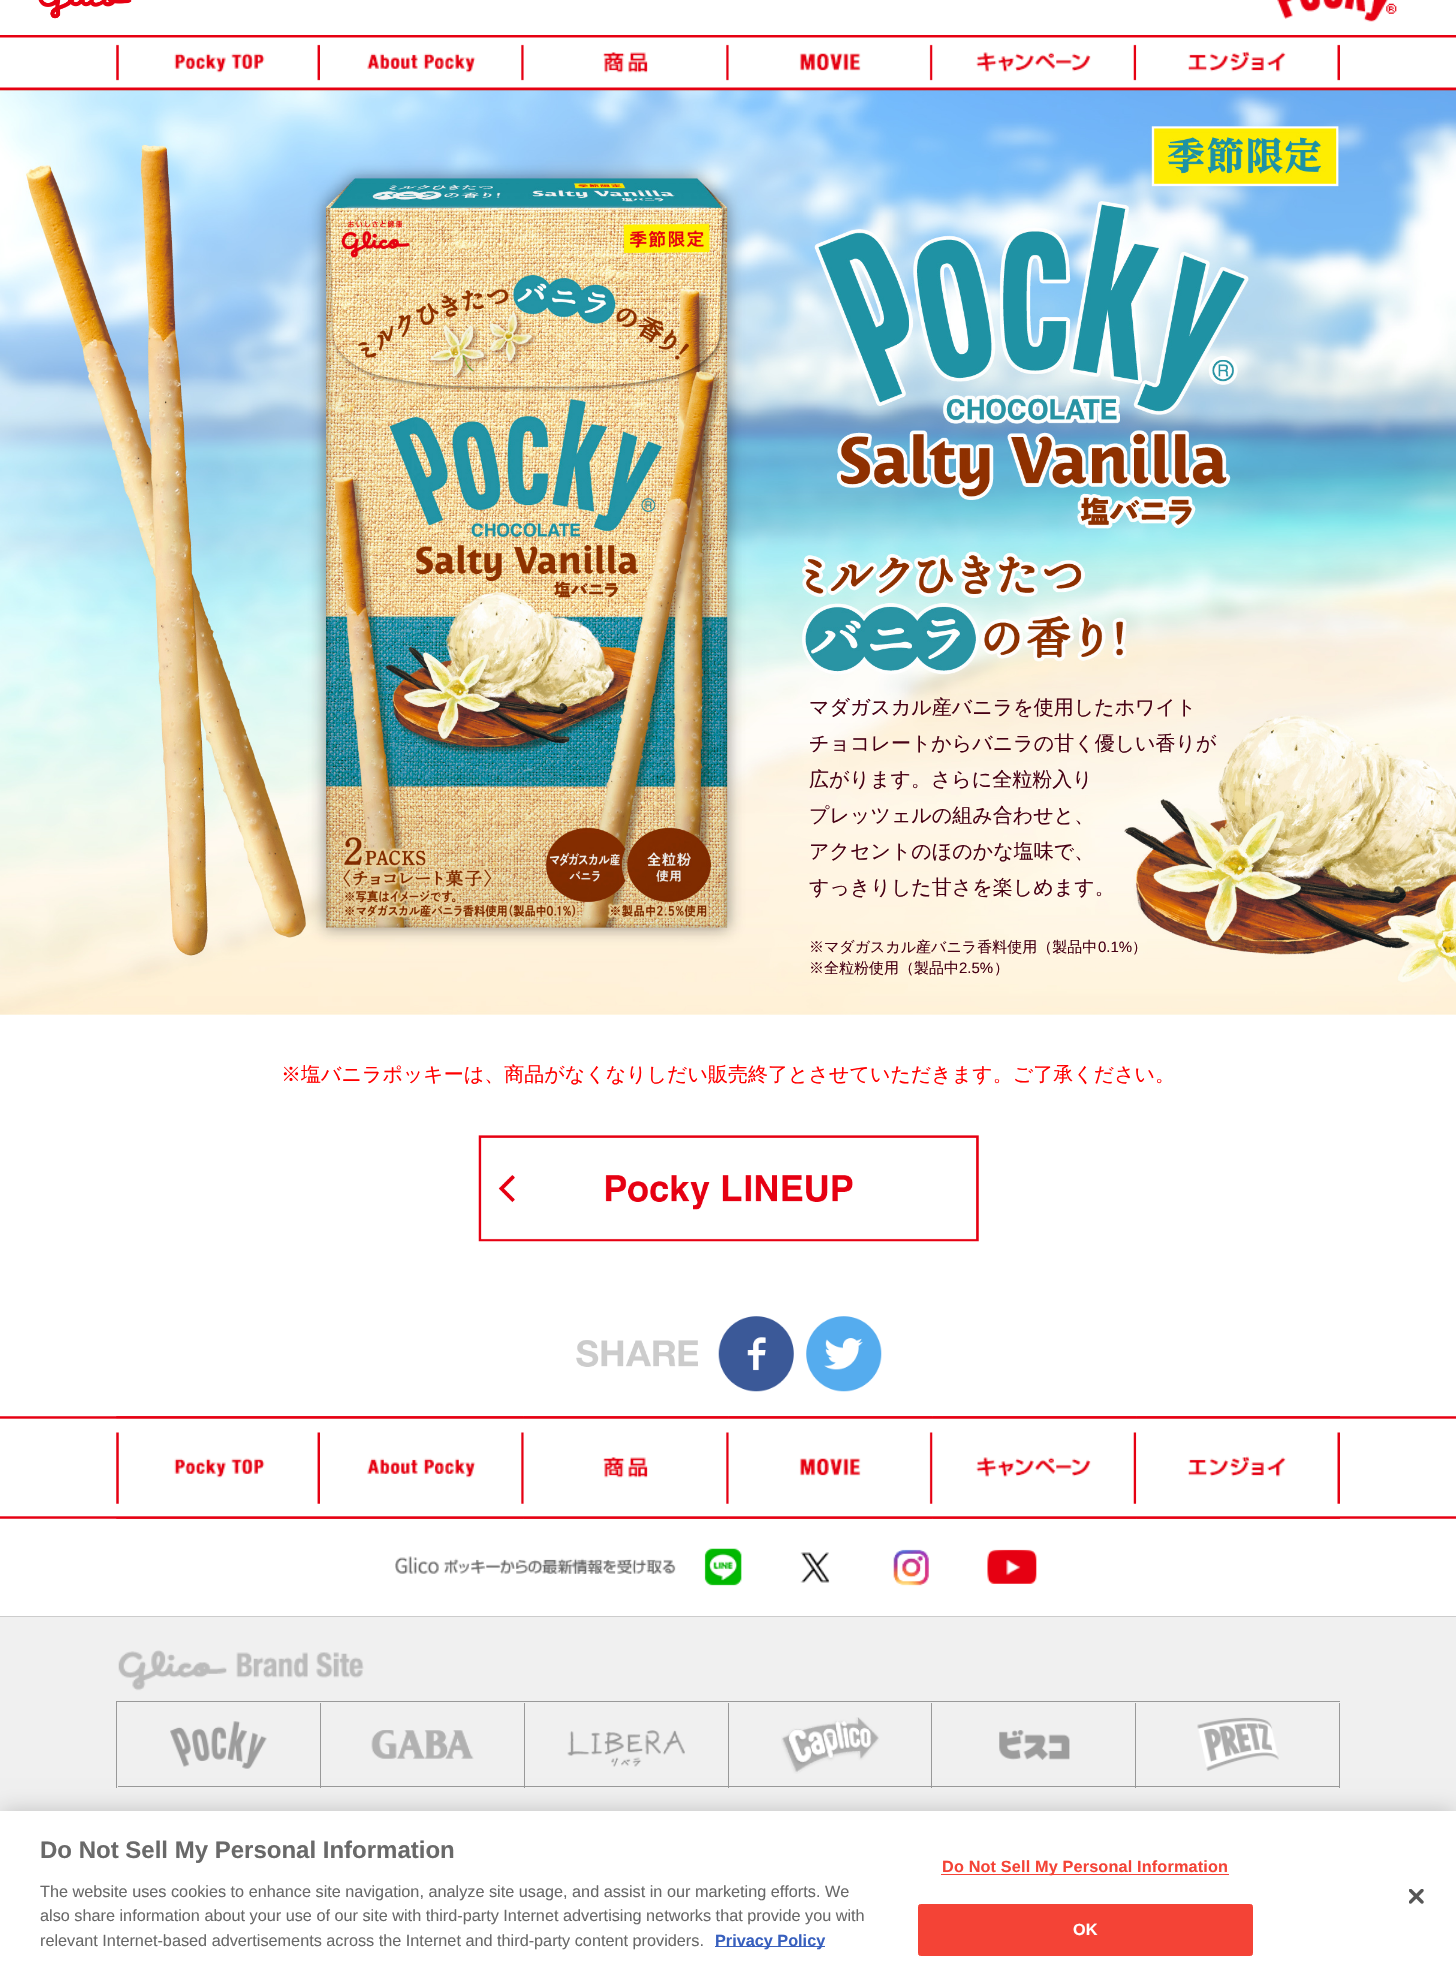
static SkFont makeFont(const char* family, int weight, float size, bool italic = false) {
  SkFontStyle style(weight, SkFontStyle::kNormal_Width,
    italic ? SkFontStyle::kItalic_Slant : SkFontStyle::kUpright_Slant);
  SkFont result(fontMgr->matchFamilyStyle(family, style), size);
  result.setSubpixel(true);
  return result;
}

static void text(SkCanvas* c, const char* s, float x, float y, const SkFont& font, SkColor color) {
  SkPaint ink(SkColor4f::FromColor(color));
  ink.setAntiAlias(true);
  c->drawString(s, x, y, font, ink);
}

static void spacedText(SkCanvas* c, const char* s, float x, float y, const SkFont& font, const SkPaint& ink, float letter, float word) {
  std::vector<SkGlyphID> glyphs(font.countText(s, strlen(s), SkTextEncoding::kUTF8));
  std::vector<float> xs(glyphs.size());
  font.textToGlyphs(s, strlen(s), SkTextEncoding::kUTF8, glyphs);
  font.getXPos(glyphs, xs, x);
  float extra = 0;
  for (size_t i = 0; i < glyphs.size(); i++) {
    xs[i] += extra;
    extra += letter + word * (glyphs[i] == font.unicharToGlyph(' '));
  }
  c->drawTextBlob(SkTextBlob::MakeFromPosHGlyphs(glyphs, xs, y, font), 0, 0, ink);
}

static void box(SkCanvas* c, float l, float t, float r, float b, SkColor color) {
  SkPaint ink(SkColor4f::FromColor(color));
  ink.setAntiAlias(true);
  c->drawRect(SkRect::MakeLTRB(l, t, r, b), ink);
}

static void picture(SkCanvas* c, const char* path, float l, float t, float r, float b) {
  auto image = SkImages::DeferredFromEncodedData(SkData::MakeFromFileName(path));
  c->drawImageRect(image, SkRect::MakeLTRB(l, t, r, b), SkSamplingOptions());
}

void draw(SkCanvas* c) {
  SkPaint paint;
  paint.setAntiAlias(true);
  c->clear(0xffffffff);
  picture(c, "img_01.png", 38, 0, 132, 19);
  picture(c, "img_02.png", 1277, 0, 1397, 22);
  picture(c, "img_03.png", 0, 35, 1456, 90);
  picture(c, "img_04.png", 116, 44, 320, 81);
  picture(c, "img_05.png", 367, 44, 524, 81);
  picture(c, "img_06.png", 523, 44, 729, 81);
  picture(c, "img_07.png", 728, 44, 933, 81);
  picture(c, "img_08.png", 932, 44, 1137, 81);
  picture(c, "img_09.png", 1136, 44, 1340, 81);
  picture(c, "img_10.png", 0, 90, 1456, 1015);
  SkFont face1 = makeFont("WenQuanYi Zen Hei", 500, 20);
  text(c, "マダガスカル産バニラを使用したホワイト", 809, 714, face1, 0xff470014);
  text(c, "チョコレートからバニラの甘く優しい香りが", 809, 750, face1, 0xff470014);
  text(c, "広がります。さらに全粒粉入り", 809, 786, face1, 0xff470014);
  text(c, "プレッツェルの組み合わせと、", 809, 822, face1, 0xff470014);
  text(c, "アクセントのほのかな塩味で、", 809, 858, face1, 0xff470014);
  text(c, "すっきりした甘さを楽しめます。", 809, 894, face1, 0xff470014);
  SkFont face2 = makeFont("WenQuanYi Zen Hei", 500, 15);
  text(c, "※マダガスカル産バニラ香料使用（製品中", 809, 952, face2, 0xff470014);
  SkFont face3 = makeFont("Liberation Sans", 400, 15);
  text(c, "0.1%", 1098, 952, face3, 0xff470014);
  text(c, "）", 1132, 952, face2, 0xff470014);
  text(c, "※全粒粉使用（製品中", 809, 973, face2, 0xff470014);
  text(c, "2.5%", 959, 973, face3, 0xff470014);
  text(c, "）", 994, 973, face2, 0xff470014);
  text(c, "※塩バニラポッキーは、商品がなくなりしだい販売終了とさせていただきます。ご了承ください。", 281, 1081, face1, 0xffff0000);
  picture(c, "img_11.png", 478, 1135, 979, 1242);
  picture(c, "img_12.png", 576, 1340, 698, 1367);
  picture(c, "img_13.png", 718, 1316, 794, 1392);
  picture(c, "img_14.png", 806, 1316, 882, 1392);
  picture(c, "img_15.png", 0, 1416, 1456, 1519);
  picture(c, "img_16.png", 116, 1416, 320, 1519);
  picture(c, "img_17.png", 320, 1416, 524, 1519);
  picture(c, "img_18.png", 523, 1416, 729, 1519);
  picture(c, "img_19.png", 728, 1416, 933, 1519);
  picture(c, "img_20.png", 932, 1416, 1137, 1519);
  picture(c, "img_21.png", 1136, 1416, 1340, 1519);
  picture(c, "img_22.png", 395, 1556, 676, 1574);
  picture(c, "img_23.png", 704, 1548, 742, 1586);
  picture(c, "img_24.png", 800, 1552, 830, 1583);
  picture(c, "img_25.png", 893, 1549, 929, 1586);
  picture(c, "img_26.png", 987, 1549, 1037, 1584);
  box(c, 0, 1617, 1456, 1811, 0xfff0f0f0);
  box(c, 0, 1616, 1456, 1617, 0xffcccccc);
  picture(c, "img_27.png", 118, 1650, 364, 1691);
  box(c, 116, 1701, 1340, 1702, 0xff999999);
  box(c, 116, 1701, 117, 1788, 0xff999999);
  box(c, 320, 1703, 321, 1788, 0xff999999);
  box(c, 118, 1786, 321, 1787, 0xff999999);
  picture(c, "img_28.png", 170, 1721, 267, 1769);
  box(c, 524, 1703, 525, 1788, 0xff999999);
  box(c, 321, 1786, 525, 1787, 0xff999999);
  picture(c, "img_29.png", 371, 1730, 474, 1759);
  box(c, 728, 1703, 729, 1788, 0xff999999);
  box(c, 525, 1786, 729, 1787, 0xff999999);
  picture(c, "img_30.png", 567, 1730, 685, 1767);
  box(c, 931, 1703, 932, 1788, 0xff999999);
  box(c, 729, 1786, 933, 1787, 0xff999999);
  picture(c, "img_31.png", 781, 1717, 880, 1774);
  box(c, 1135, 1703, 1136, 1788, 0xff999999);
  box(c, 933, 1786, 1136, 1787, 0xff999999);
  picture(c, "img_32.png", 999, 1730, 1070, 1760);
  box(c, 1339, 1703, 1340, 1788, 0xff999999);
  box(c, 1136, 1786, 1340, 1787, 0xff999999);
  picture(c, "img_33.png", 1197, 1717, 1279, 1771);
  paint.setColor(0x33000000);
  paint.setMaskFilter(SkMaskFilter::MakeBlur(kNormal_SkBlurStyle, 11));
  c->drawRect(SkRect::MakeLTRB(0, 1811, 1456, 1981), paint);
  paint.setMaskFilter(nullptr);
  box(c, 0, 1811, 1456, 1981, 0xffffffff);
  SkFont face4 = makeFont("Liberation Sans", 700, 24);
  text(c, "Do Not Sell My Personal Information", 40, 1858, face4, 0xff696969);
  SkFont face5 = makeFont("Liberation Sans", 400, 16.25f);
  text(c, "The website uses cookies to enhance site navigation, analyze site usage, and assist in our marketing efforts. We", 40, 1897, face5, 0xff696969);
  text(c, "also share information about your use of our site with third-party Internet advertising networks that provide you with", 40, 1921, face5, 0xff696969);
  text(c, "relevant Internet-based advertisements across the Internet and third-party content providers.", 40, 1946, face5, 0xff696969);
  box(c, 715, 1946, 825, 1947, 0xff3860be);
  SkFont face6 = makeFont("Liberation Sans", 700, 16.25f);
  text(c, "Privacy Policy", 715, 1946, face6, 0xff3860be);
  box(c, 941, 1874, 1229, 1875, 0xfff44336);
  paint.setColor(0xfff44336);
  spacedText(c, "Do Not Sell My Personal Information", 942, 1872, face6, paint, 0.15f, 0);
  c->drawRoundRect(SkRect::MakeLTRB(918.5f, 1904.5f, 1252.5f, 1955.5f), 2, 2, paint);
  paint.setStyle(SkPaint::kStroke_Style);
  paint.setStrokeWidth(1);
  c->drawRoundRect(SkRect::MakeLTRB(918.5f, 1904.5f, 1252.5f, 1955.5f), 2, 2, paint);
  paint.setStyle(SkPaint::kFill_Style);
  paint.setColor(0xffffffff);
  spacedText(c, "OK", 1073, 1935, face6, paint, 0.15f, 0);
  picture(c, "img_34.png", 1409, 1889, 1424, 1904);
}
